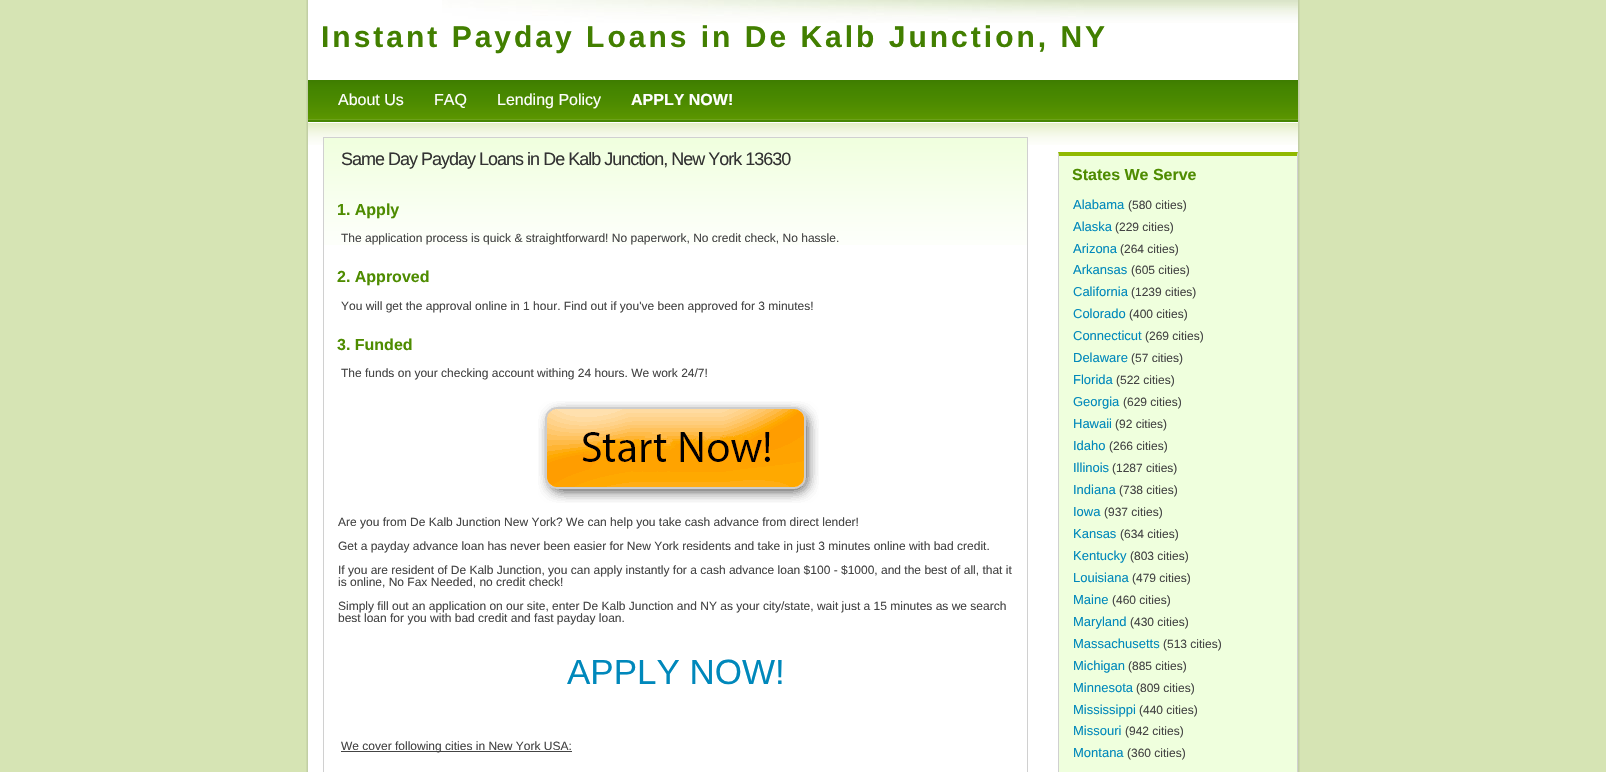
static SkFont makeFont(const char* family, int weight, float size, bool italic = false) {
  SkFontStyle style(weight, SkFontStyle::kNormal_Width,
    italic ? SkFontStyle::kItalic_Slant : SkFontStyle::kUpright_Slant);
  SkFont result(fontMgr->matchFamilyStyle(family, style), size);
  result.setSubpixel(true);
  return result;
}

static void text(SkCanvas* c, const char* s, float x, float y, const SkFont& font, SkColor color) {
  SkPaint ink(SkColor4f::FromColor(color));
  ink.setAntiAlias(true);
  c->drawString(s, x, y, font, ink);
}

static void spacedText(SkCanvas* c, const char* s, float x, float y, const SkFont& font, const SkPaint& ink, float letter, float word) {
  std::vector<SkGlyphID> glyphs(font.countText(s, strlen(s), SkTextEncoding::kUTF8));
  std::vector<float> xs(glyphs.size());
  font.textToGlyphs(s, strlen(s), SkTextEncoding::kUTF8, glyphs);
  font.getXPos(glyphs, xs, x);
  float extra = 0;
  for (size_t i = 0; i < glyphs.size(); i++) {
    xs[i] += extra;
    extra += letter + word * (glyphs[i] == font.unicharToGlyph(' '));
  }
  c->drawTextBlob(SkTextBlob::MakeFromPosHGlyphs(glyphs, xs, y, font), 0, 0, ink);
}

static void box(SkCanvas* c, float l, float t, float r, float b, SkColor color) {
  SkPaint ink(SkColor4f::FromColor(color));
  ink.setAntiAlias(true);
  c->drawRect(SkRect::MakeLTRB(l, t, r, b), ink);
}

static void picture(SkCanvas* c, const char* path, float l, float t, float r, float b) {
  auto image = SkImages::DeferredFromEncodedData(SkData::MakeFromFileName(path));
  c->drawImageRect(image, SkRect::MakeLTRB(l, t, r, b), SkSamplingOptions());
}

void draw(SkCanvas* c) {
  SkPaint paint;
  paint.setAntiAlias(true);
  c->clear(0xffd6e4b4);
  picture(c, "img_01.png", 306, 0, 1300, 772);
  picture(c, "img_02.png", 442, 0, 1298, 23);
  SkFont face1 = makeFont("Liberation Sans", 700, 30);
  paint.setColor(0xff427f00);
  spacedText(c, "Instant Payday Loans in De Kalb Junction, NY", 321, 47, face1, paint, 3, 0);
  picture(c, "img_03.png", 308, 80, 1298, 122);
  SkFont face2 = makeFont("Liberation Sans", 400, 16);
  text(c, "About Us", 338, 105, face2, 0xffffffff);
  text(c, "FAQ", 434, 105, face2, 0xffffffff);
  text(c, "Lending Policy", 497, 105, face2, 0xffffffff);
  SkFont face3 = makeFont("Liberation Sans", 700, 16);
  text(c, "APPLY NOW!", 631, 105, face3, 0xffffffff);
  picture(c, "img_04.png", 308, 123, 1298, 145);
  picture(c, "img_05.png", 324, 138, 1027, 245);
  paint.setStyle(SkPaint::kStroke_Style);
  paint.setStrokeWidth(1);
  paint.setColor(0xffd0d0d0);
  c->drawRect(SkRect::MakeLTRB(323.5f, 137.5f, 1027.5f, 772.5f), paint);
  SkFont face4 = makeFont("Liberation Sans", 400, 18);
  paint.setStyle(SkPaint::kFill_Style);
  paint.setColor(0xff333333);
  spacedText(c, "Same Day Payday Loans in De Kalb Junction, New York 13630", 341, 165, face4, paint, -1, 0);
  text(c, "1. Apply", 337, 215, face3, 0xff4e8c00);
  SkFont face5 = makeFont("Liberation Sans", 400, 12);
  text(c, "The application process is quick & straightforward! No paperwork, No credit check, No hassle.", 341, 242, face5, 0xff444444);
  text(c, "2. Approved", 337, 282, face3, 0xff4e8c00);
  text(c, "You will get the approval online in 1 hour. Find out if you've been approved for 3 minutes!", 341, 310, face5, 0xff444444);
  text(c, "3. Funded", 337, 350, face3, 0xff4e8c00);
  text(c, "The funds on your checking account withing 24 hours. We work 24/7!", 341, 377, face5, 0xff444444);
  picture(c, "img_06.png", 538, 401, 819, 503);
  text(c, "Are you from De Kalb Junction New York? We can help you take cash advance from direct lender!", 338, 526, face5, 0xff444444);
  text(c, "Get a payday advance loan has never been easier for New York residents and take in just 3 minutes online with bad credit.", 338, 550, face5, 0xff444444);
  text(c, "If you are resident of De Kalb Junction, you can apply instantly for a cash advance loan $100 - $1000, and the best of all, that it", 338, 574, face5, 0xff444444);
  text(c, "is online, No Fax Needed, no credit check!", 338, 586, face5, 0xff444444);
  text(c, "Simply fill out an application on our site, enter De Kalb Junction and NY as your city/state, wait just a 15 minutes as we search", 338, 610, face5, 0xff444444);
  text(c, "best loan for you with bad credit and fast payday loan.", 338, 622, face5, 0xff444444);
  SkFont face6 = makeFont("Liberation Sans", 400, 35);
  text(c, "APPLY NOW!", 567, 684, face6, 0xff0088bb);
  box(c, 341, 751, 572, 752, 0xff444444);
  text(c, "We cover following cities in New York USA:", 341, 750, face5, 0xff444444);
  box(c, 1059, 156, 1297, 772, 0xffefffdd);
  paint.setColor(0xff90b900);
  c->drawPath(SkPathBuilder().moveTo(1058, 152).lineTo(1298, 152).lineTo(1297, 156).lineTo(1059, 156).close().detach(), paint);
  paint.setColor(0xffd0d0d0);
  c->drawPath(SkPathBuilder().moveTo(1298, 152).lineTo(1298, 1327).lineTo(1297, 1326).lineTo(1297, 156).close().detach(), paint);
  c->drawPath(SkPathBuilder().moveTo(1058, 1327).lineTo(1058, 152).lineTo(1059, 156).lineTo(1059, 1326).close().detach(), paint);
  text(c, "States We Serve", 1072, 180, face3, 0xff4e8c00);
  SkFont face7 = makeFont("Liberation Sans", 400, 13);
  text(c, "Alabama", 1073, 209, face7, 0xff0088bb);
  text(c, "(580 cities)", 1128, 209, face5, 0xff444444);
  text(c, "Alaska", 1073, 231, face7, 0xff0088bb);
  text(c, "(229 cities)", 1115, 231, face5, 0xff444444);
  text(c, "Arizona", 1073, 253, face7, 0xff0088bb);
  text(c, "(264 cities)", 1120, 253, face5, 0xff444444);
  text(c, "Arkansas", 1073, 274, face7, 0xff0088bb);
  text(c, "(605 cities)", 1131, 274, face5, 0xff444444);
  text(c, "California", 1073, 296, face7, 0xff0088bb);
  text(c, "(1239 cities)", 1131, 296, face5, 0xff444444);
  text(c, "Colorado", 1073, 318, face7, 0xff0088bb);
  text(c, "(400 cities)", 1129, 318, face5, 0xff444444);
  text(c, "Connecticut", 1073, 340, face7, 0xff0088bb);
  text(c, "(269 cities)", 1145, 340, face5, 0xff444444);
  text(c, "Delaware", 1073, 362, face7, 0xff0088bb);
  text(c, "(57 cities)", 1131, 362, face5, 0xff444444);
  text(c, "Florida", 1073, 384, face7, 0xff0088bb);
  text(c, "(522 cities)", 1116, 384, face5, 0xff444444);
  text(c, "Georgia", 1073, 406, face7, 0xff0088bb);
  text(c, "(629 cities)", 1123, 406, face5, 0xff444444);
  text(c, "Hawaii", 1073, 428, face7, 0xff0088bb);
  text(c, "(92 cities)", 1115, 428, face5, 0xff444444);
  text(c, "Idaho", 1073, 450, face7, 0xff0088bb);
  text(c, "(266 cities)", 1109, 450, face5, 0xff444444);
  text(c, "Illinois", 1073, 472, face7, 0xff0088bb);
  text(c, "(1287 cities)", 1112, 472, face5, 0xff444444);
  text(c, "Indiana", 1073, 494, face7, 0xff0088bb);
  text(c, "(738 cities)", 1119, 494, face5, 0xff444444);
  text(c, "Iowa", 1073, 516, face7, 0xff0088bb);
  text(c, "(937 cities)", 1104, 516, face5, 0xff444444);
  text(c, "Kansas", 1073, 538, face7, 0xff0088bb);
  text(c, "(634 cities)", 1120, 538, face5, 0xff444444);
  text(c, "Kentucky", 1073, 560, face7, 0xff0088bb);
  text(c, "(803 cities)", 1130, 560, face5, 0xff444444);
  text(c, "Louisiana", 1073, 582, face7, 0xff0088bb);
  text(c, "(479 cities)", 1132, 582, face5, 0xff444444);
  text(c, "Maine", 1073, 604, face7, 0xff0088bb);
  text(c, "(460 cities)", 1112, 604, face5, 0xff444444);
  text(c, "Maryland", 1073, 626, face7, 0xff0088bb);
  text(c, "(430 cities)", 1130, 626, face5, 0xff444444);
  text(c, "Massachusetts", 1073, 648, face7, 0xff0088bb);
  text(c, "(513 cities)", 1163, 648, face5, 0xff444444);
  text(c, "Michigan", 1073, 670, face7, 0xff0088bb);
  text(c, "(885 cities)", 1128, 670, face5, 0xff444444);
  text(c, "Minnesota", 1073, 692, face7, 0xff0088bb);
  text(c, "(809 cities)", 1136, 692, face5, 0xff444444);
  text(c, "Mississippi", 1073, 714, face7, 0xff0088bb);
  text(c, "(440 cities)", 1139, 714, face5, 0xff444444);
  text(c, "Missouri", 1073, 735, face7, 0xff0088bb);
  text(c, "(942 cities)", 1125, 735, face5, 0xff444444);
  text(c, "Montana", 1073, 757, face7, 0xff0088bb);
  text(c, "(360 cities)", 1127, 757, face5, 0xff444444);
}
